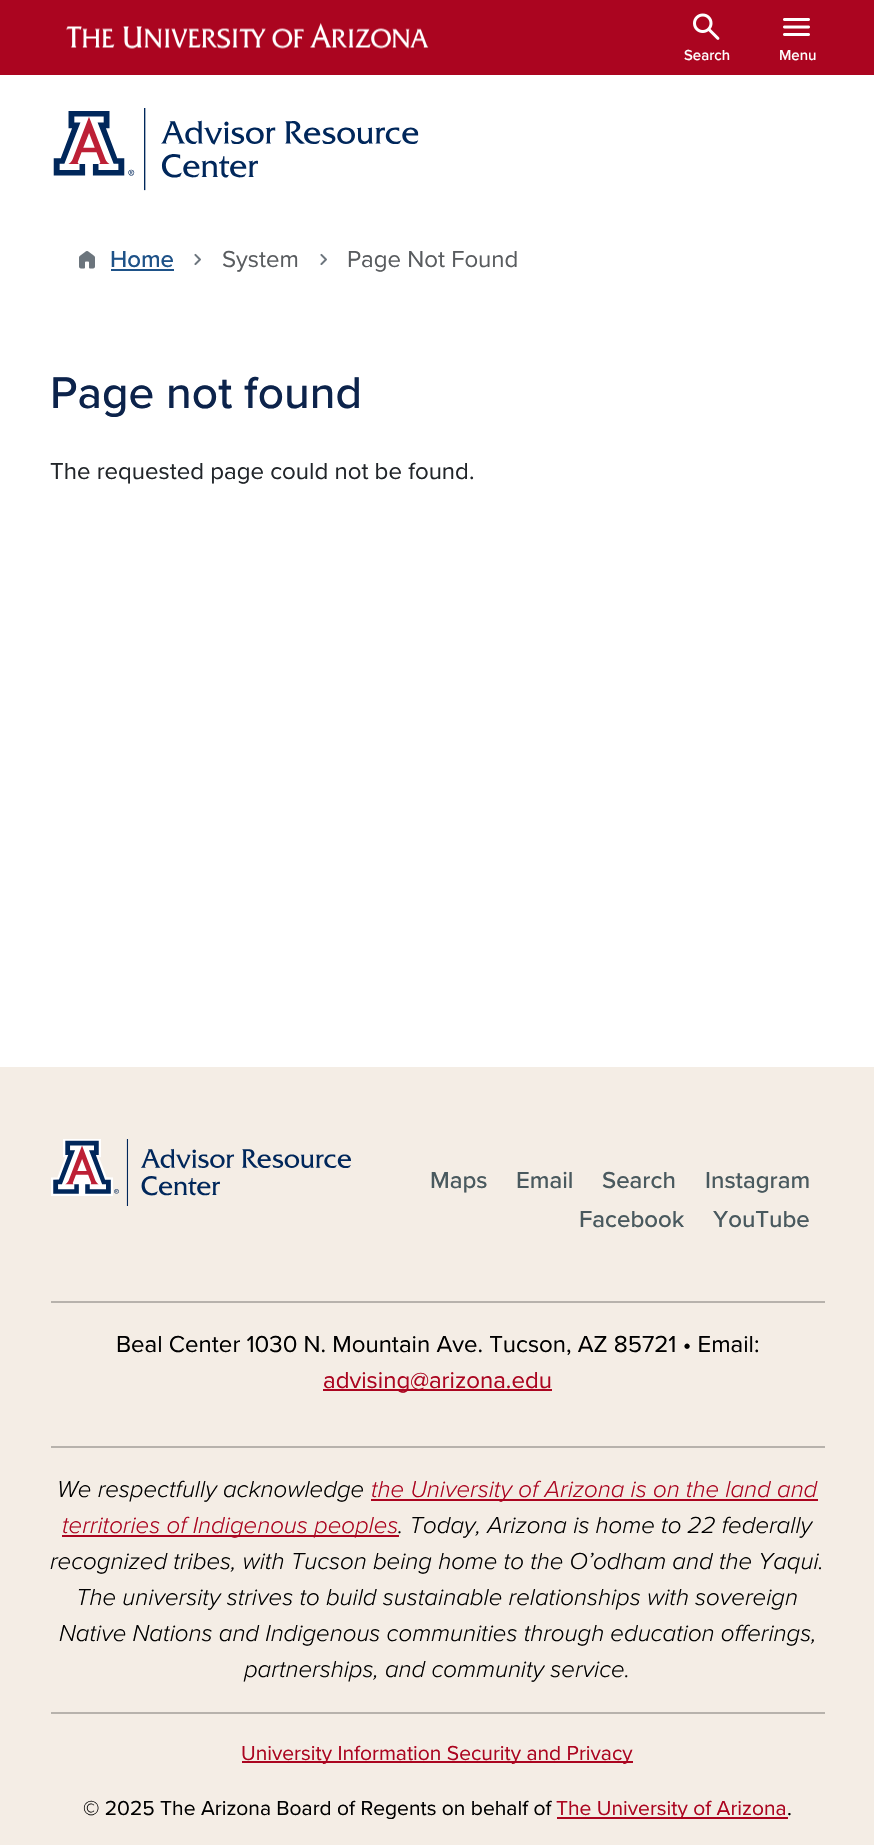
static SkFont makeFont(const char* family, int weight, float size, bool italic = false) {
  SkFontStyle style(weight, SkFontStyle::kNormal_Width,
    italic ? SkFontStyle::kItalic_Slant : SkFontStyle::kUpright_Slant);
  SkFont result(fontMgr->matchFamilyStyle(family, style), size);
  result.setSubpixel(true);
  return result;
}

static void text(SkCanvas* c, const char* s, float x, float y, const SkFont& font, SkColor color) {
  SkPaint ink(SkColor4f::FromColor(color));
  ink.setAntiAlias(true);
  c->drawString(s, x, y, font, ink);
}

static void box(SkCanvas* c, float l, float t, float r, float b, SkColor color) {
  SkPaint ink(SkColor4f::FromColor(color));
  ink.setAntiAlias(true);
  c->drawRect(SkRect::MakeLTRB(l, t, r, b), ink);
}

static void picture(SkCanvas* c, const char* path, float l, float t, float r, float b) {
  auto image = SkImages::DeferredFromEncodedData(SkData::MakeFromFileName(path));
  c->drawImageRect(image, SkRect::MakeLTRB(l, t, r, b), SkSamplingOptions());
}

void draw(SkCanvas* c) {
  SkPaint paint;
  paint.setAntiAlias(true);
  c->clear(0xffffffff);
  box(c, 0, 0, 874, 75, 0xffab0520);
  picture(c, "img_01.png", 66, 22, 429, 49);
  picture(c, "img_02.png", 693, 13, 720, 40);
  SkFont face1 = makeFont("Proxima Nova", 500, 15);
  text(c, "Search", 684, 60, face1, 0xffffffff);
  picture(c, "img_03.png", 783, 18, 810, 36);
  text(c, "Menu", 779, 60, face1, 0xffffffff);
  picture(c, "img_04.png", 53, 108, 419, 191);
  picture(c, "img_05.png", 79, 251, 95, 269);
  SkFont face2 = makeFont("Proxima Nova", 500, 24);
  text(c, "Home", 110, 267, face2, 0xff1e5288);
  box(c, 111, 269, 174, 271, 0xff1e5288);
  picture(c, "img_06.png", 194, 253, 201, 266);
  SkFont face3 = makeFont("Proxima Nova", 400, 24);
  text(c, "System", 222, 267, face3, 0xff595c5f);
  picture(c, "img_06.png", 320, 253, 327, 266);
  text(c, "Page Not Found", 347, 267, face3, 0xff595c5f);
  SkFont face4 = makeFont("Proxima Nova", 500, 46);
  text(c, "Page not found", 50, 408, face4, 0xff0c234b);
  text(c, "The requested page could not be found.", 50, 479, face3, 0xff212529);
  box(c, 0, 1067, 874, 1845, 0xfff4ede5);
  picture(c, "img_07.png", 51, 1139, 351, 1206);
  text(c, "Maps", 430, 1188, face2, 0xff49595e);
  text(c, "Email", 516, 1188, face2, 0xff49595e);
  text(c, "Search", 602, 1188, face2, 0xff49595e);
  text(c, "Instagram", 705, 1188, face2, 0xff49595e);
  text(c, "Facebook", 579, 1227, face2, 0xff49595e);
  text(c, "YouTube", 713, 1227, face2, 0xff49595e);
  box(c, 51, 1301, 825, 1303, 0xffb7b2ac);
  text(c, "Beal Center 1030 N. Mountain Ave. Tucson, AZ 85721 • Email:", 116, 1352, face3, 0xff000000);
  box(c, 323, 1389, 552, 1391, 0xffab0520);
  text(c, "advising@arizona.edu", 323, 1388, face3, 0xffab0520);
  box(c, 51, 1446, 825, 1448, 0xffb7b2ac);
  SkFont face5 = makeFont("Proxima Nova", 300, 24, true);
  text(c, "We respectfully acknowledge", 57, 1497, face5, 0xff000000);
  box(c, 371, 1499, 818, 1501, 0xffab0520);
  text(c, "the University of Arizona is on the land and", 371, 1497, face5, 0xffab0520);
  box(c, 62, 1535, 399, 1537, 0xffab0520);
  text(c, "territories of Indigenous peoples", 62, 1533, face5, 0xffab0520);
  text(c, ". Today, Arizona is home to 22 federally", 398, 1533, face5, 0xff000000);
  text(c, "recognized tribes, with Tucson being home to the O’odham and the Yaqui.", 50, 1569, face5, 0xff000000);
  text(c, "The university strives to build sustainable relationships with sovereign", 76, 1605, face5, 0xff000000);
  text(c, "Native Nations and Indigenous communities through education offerings,", 59, 1641, face5, 0xff000000);
  text(c, "partnerships, and community service.", 244, 1677, face5, 0xff000000);
  box(c, 51, 1712, 825, 1714, 0xffb7b2ac);
  box(c, 242, 1761, 633, 1763, 0xffab0520);
  SkFont face6 = makeFont("Proxima Nova", 400, 21);
  text(c, "University Information Security and Privacy", 241, 1760, face6, 0xffab0520);
  text(c, "© 2025 The Arizona Board of Regents on behalf of", 83, 1815, face6, 0xff000000);
  box(c, 557, 1817, 788, 1819, 0xffab0520);
  text(c, "The University of Arizona", 556, 1815, face6, 0xffab0520);
  text(c, ".", 787, 1815, face6, 0xff000000);
}
